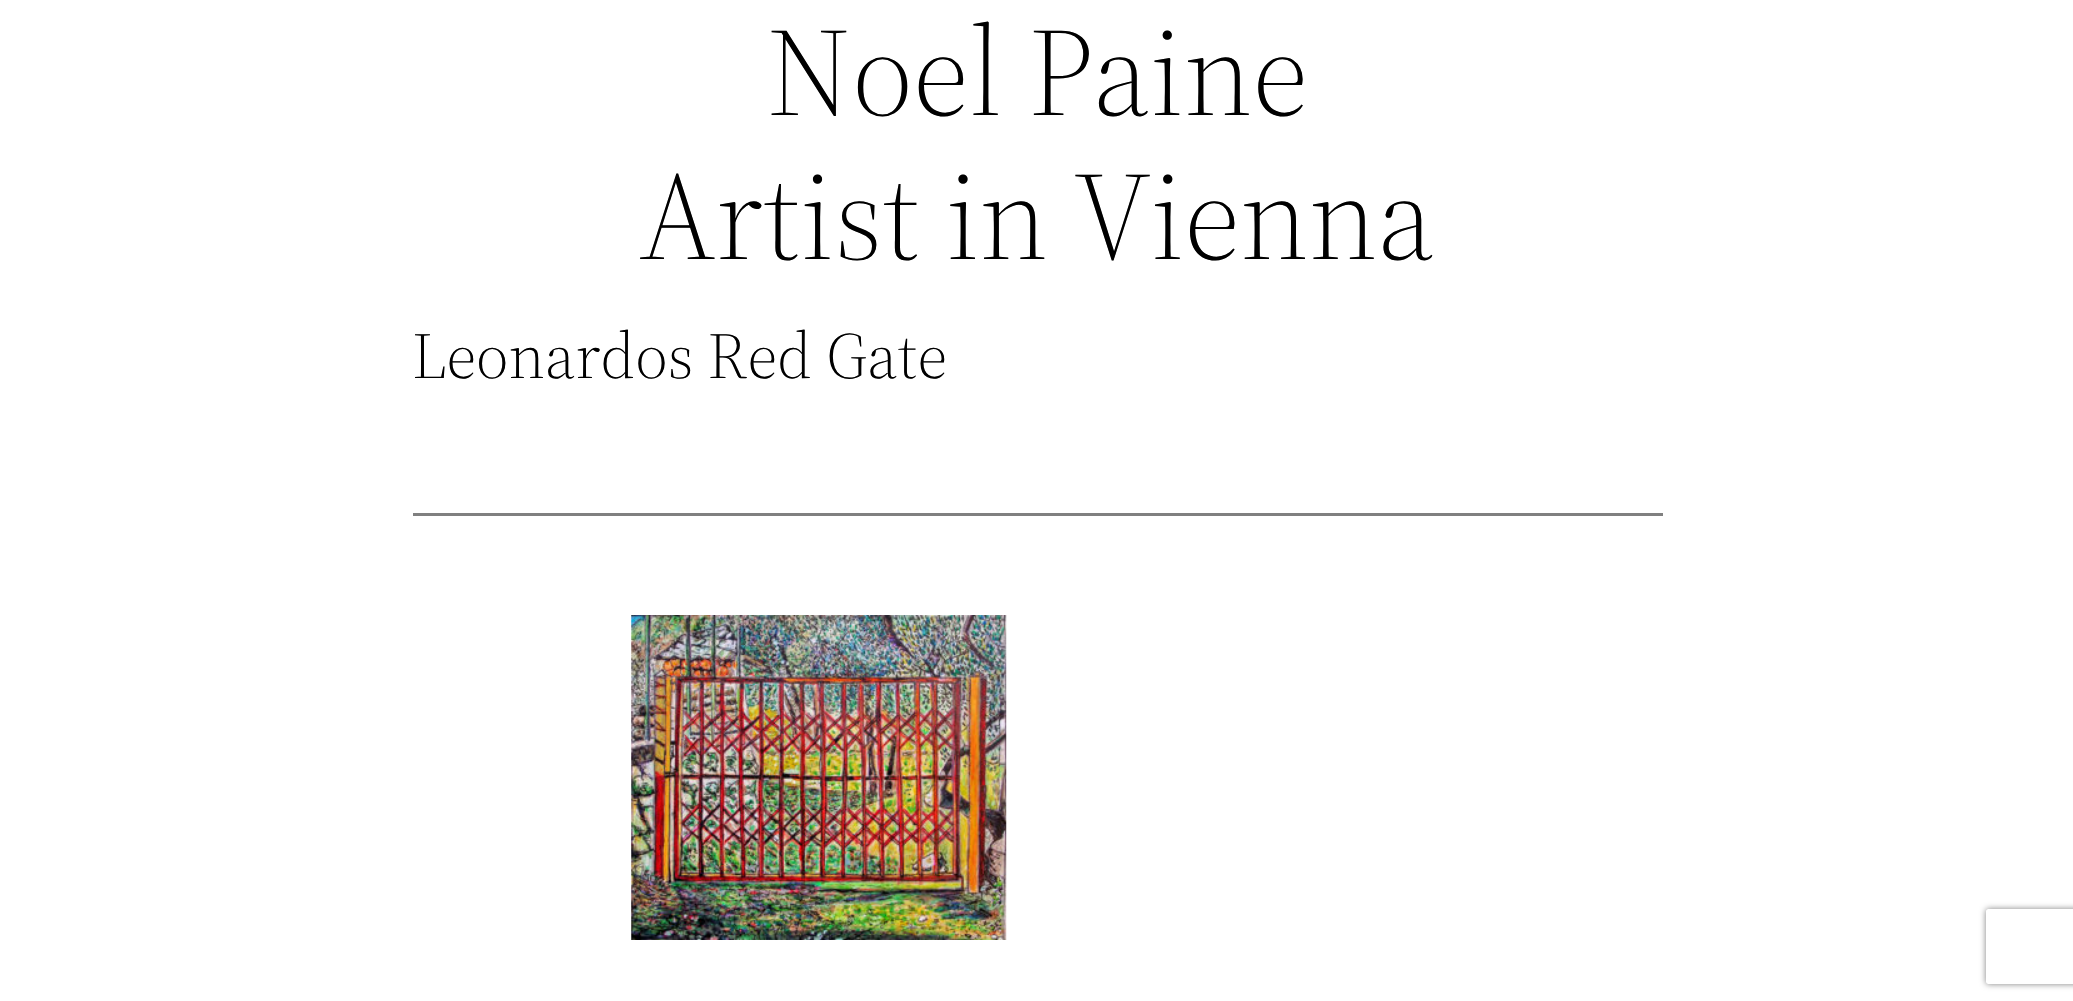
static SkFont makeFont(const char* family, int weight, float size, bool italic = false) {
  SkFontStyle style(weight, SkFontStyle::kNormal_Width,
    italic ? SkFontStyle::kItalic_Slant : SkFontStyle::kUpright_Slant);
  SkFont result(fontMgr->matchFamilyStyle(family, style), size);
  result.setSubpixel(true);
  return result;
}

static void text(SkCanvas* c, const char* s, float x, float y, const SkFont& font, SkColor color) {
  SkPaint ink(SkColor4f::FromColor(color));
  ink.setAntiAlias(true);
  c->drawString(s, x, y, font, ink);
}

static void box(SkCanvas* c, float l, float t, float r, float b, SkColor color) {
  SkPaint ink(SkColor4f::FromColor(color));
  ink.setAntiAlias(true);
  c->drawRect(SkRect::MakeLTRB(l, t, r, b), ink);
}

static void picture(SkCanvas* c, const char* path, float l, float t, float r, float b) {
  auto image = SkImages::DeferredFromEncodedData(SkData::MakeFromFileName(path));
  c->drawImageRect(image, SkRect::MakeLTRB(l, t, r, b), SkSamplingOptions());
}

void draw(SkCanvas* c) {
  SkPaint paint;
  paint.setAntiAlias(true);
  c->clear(0xffffffff);
  SkFont face1 = makeFont("Source Serif 4", 300, 125);
  text(c, "Noel Paine", 766, 115, face1, 0xff000000);
  text(c, "Artist in Vienna", 639, 259, face1, 0xff000000);
  SkFont face2 = makeFont("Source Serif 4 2", 300, 65);
  text(c, "Leonardos Red Gate", 412, 378, face2, 0xff000000);
  box(c, 413, 513, 1663, 516, 0xff808080);
  picture(c, "img_01.png", 631, 615, 1007, 940);
  c->save();
  c->clipPath(SkPathBuilder(SkPathFillType::kEvenOdd).moveTo(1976, 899).lineTo(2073, 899).lineTo(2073, 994).lineTo(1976, 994).close().moveTo(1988.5f, 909).lineTo(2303.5f, 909).cubicTo(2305, 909, 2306, 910, 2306, 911.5f).lineTo(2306, 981.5f).cubicTo(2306, 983, 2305, 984, 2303.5f, 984).lineTo(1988.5f, 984).cubicTo(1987, 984, 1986, 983, 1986, 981.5f).lineTo(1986, 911.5f).cubicTo(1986, 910, 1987, 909, 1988.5f, 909).close().detach(), true);
  paint.setColor(0xff808080);
  paint.setMaskFilter(SkMaskFilter::MakeBlur(kNormal_SkBlurStyle, 3));
  c->drawRoundRect(SkRect::MakeLTRB(1986, 909, 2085, 984), 2.5f, 2.5f, paint);
  paint.setMaskFilter(nullptr);
  c->restore();
}
